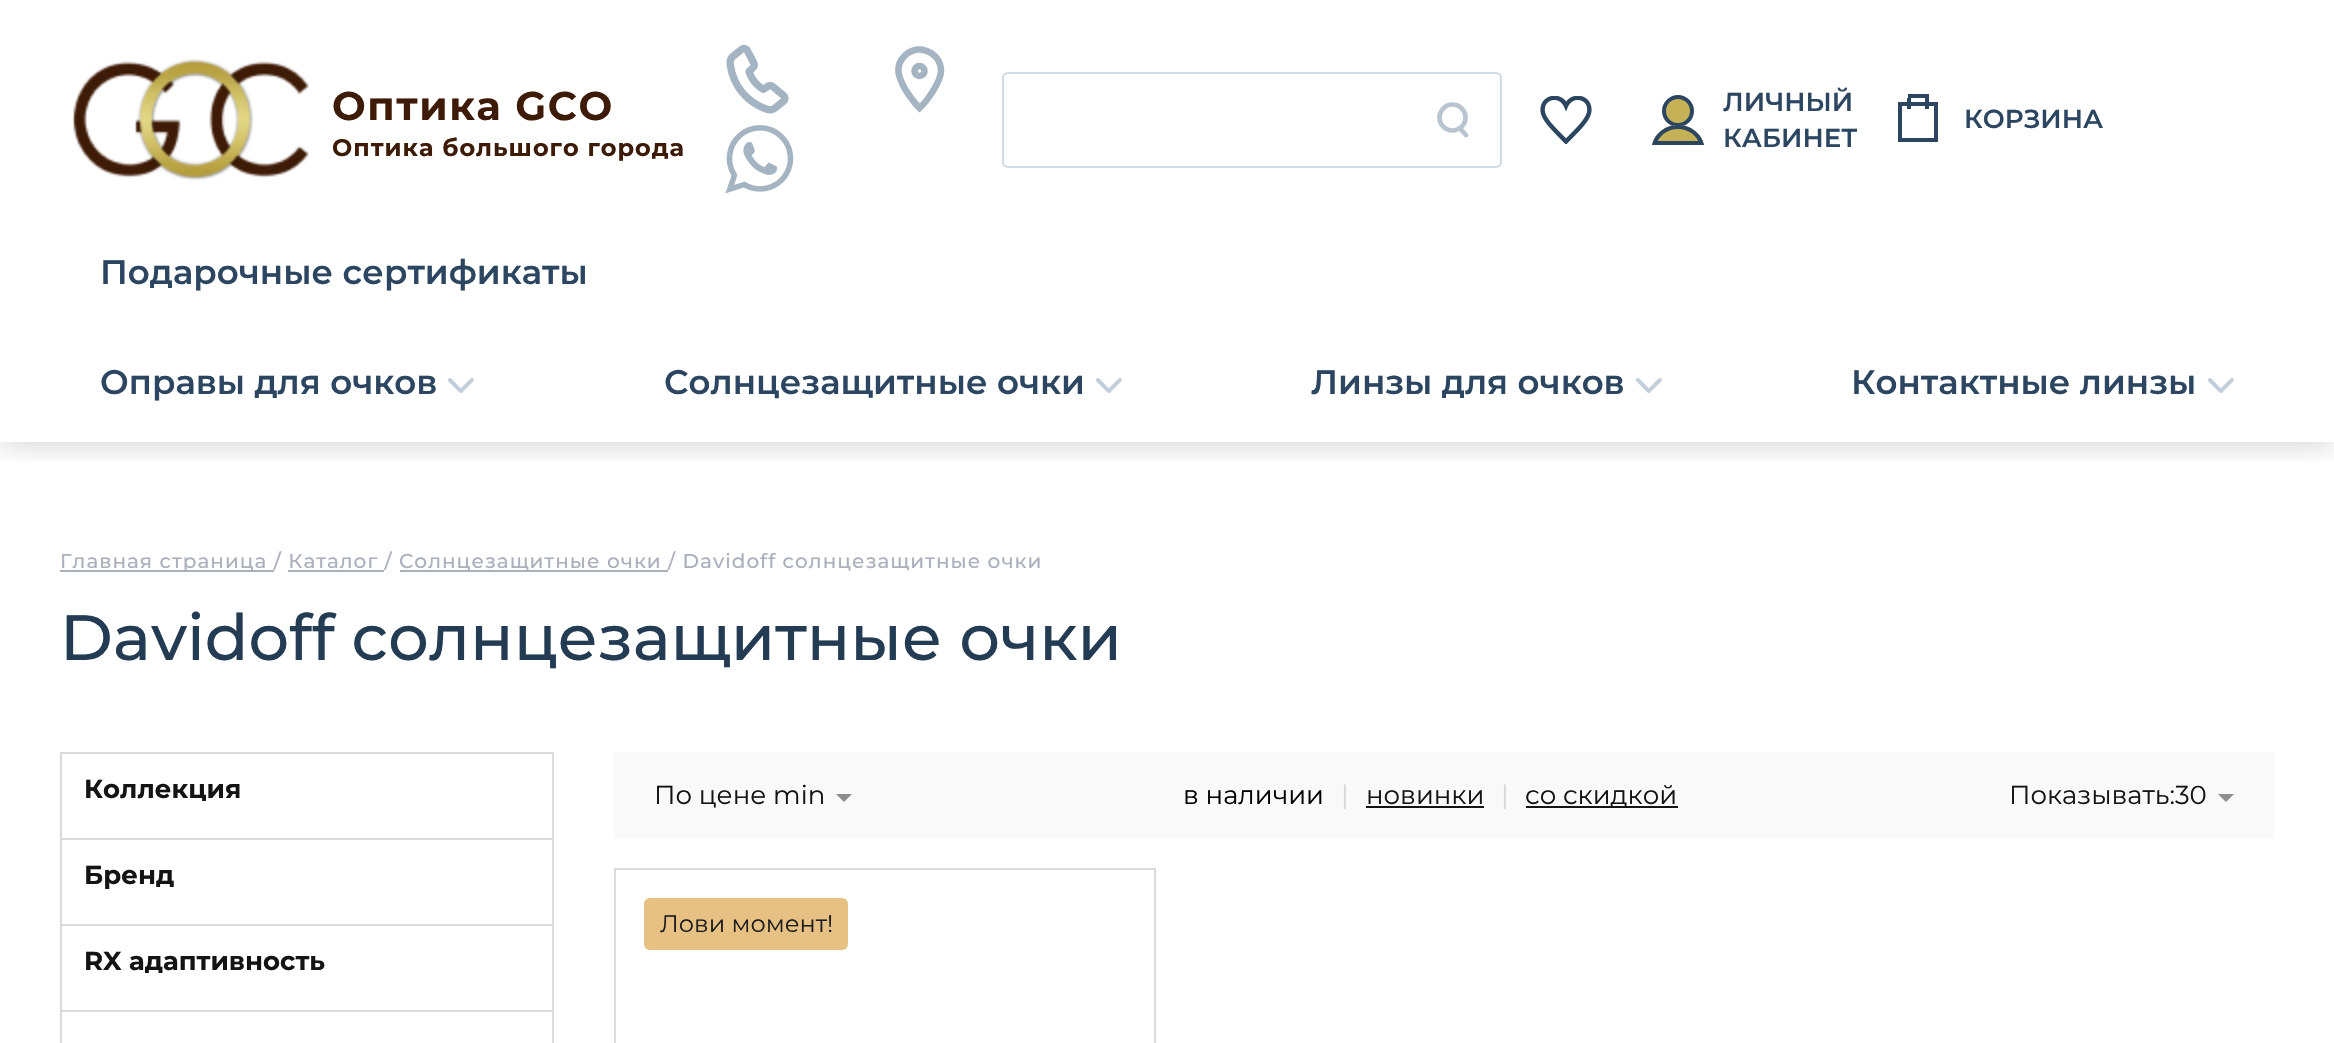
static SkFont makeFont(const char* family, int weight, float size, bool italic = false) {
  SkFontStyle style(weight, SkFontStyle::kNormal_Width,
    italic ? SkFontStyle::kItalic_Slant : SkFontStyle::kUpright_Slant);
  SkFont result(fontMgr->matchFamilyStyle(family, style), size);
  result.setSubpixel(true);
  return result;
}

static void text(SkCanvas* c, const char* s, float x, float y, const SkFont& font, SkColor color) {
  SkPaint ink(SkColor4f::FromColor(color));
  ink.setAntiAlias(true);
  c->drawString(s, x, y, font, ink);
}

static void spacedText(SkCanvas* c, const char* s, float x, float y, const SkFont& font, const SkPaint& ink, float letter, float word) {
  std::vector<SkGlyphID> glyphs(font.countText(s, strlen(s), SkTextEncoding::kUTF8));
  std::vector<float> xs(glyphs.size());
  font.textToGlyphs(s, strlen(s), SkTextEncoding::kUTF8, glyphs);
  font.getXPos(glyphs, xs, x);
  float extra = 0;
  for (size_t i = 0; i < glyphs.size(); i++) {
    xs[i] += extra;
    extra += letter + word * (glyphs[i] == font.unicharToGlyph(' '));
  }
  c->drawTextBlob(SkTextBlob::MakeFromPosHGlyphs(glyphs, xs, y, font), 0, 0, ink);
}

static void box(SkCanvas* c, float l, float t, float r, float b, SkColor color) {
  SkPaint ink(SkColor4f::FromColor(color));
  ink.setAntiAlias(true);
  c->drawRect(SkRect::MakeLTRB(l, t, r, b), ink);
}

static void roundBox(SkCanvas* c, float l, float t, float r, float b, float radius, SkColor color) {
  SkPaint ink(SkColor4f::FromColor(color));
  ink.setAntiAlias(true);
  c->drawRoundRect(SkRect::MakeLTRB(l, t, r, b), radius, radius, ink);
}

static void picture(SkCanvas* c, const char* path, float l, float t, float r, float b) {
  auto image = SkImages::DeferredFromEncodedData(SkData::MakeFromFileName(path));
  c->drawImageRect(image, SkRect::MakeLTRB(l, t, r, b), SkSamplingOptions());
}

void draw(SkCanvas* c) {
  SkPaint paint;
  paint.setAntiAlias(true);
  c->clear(0xffffffff);
  c->save();
  c->clipRect(SkRect::MakeLTRB(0, 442, 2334, 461));
  paint.setColor(0x33000000);
  paint.setMaskFilter(SkMaskFilter::MakeBlur(kNormal_SkBlurStyle, 15));
  c->drawRect(SkRect::MakeLTRB(0, 0, 2334, 442), paint);
  paint.setMaskFilter(nullptr);
  c->restore();
  picture(c, "img_01.png", 72, 59, 309, 181);
  SkFont face1 = makeFont("Montserrat", 700, 40);
  paint.setColor(0xff3d1b06);
  spacedText(c, "Оптика GCO", 332, 120, face1, paint, 1.6f, 0);
  SkFont face2 = makeFont("Montserrat", 700, 24);
  spacedText(c, "Оптика большого города", 332, 156, face2, paint, 1, 0);
  picture(c, "img_02.png", 726, 44, 789, 114);
  picture(c, "img_03.png", 725, 125, 794, 194);
  paint.setStyle(SkPaint::kStroke_Style);
  paint.setStrokeWidth(6.6f);
  paint.setColor(0xffa5b4c2);
  c->drawPath(SkPathBuilder().moveTo(941, 71).cubicTo(941, 81, 927.5f, 101, 919.5f, 108).cubicTo(914, 103, 909.5f, 96, 905.5f, 90).cubicTo(902.5f, 84.5f, 899, 78, 898.5f, 72).cubicTo(898, 67.5f, 899.5f, 62.5f, 902, 59).cubicTo(913.5f, 41.5f, 941, 50, 941, 71).close().moveTo(918.5f, 108.5f).lineTo(918.5f, 108.5f).close().moveTo(920.5f, 108.5f).lineTo(920.5f, 108.5f).close().detach(), paint);
  c->drawCircle(919.5f, 71, 5, paint);
  paint.setStrokeWidth(2);
  paint.setColor(0xffd0dbe4);
  c->drawRoundRect(SkRect::MakeLTRB(1003, 73, 1501, 167), 5, 5, paint);
  paint.setStrokeWidth(4.7f);
  paint.setColor(0xffb8c5d1);
  c->drawCircle(1452.5f, 117.5f, 13, paint);
  paint.setStrokeCap(SkPaint::kRound_Cap);
  c->drawPath(SkPathBuilder().moveTo(1461, 129.5f).lineTo(1466, 135).detach(), paint);
  picture(c, "img_04.png", 1540, 96, 1592, 144);
  picture(c, "img_05.png", 1652, 95, 1704, 145);
  SkFont face3 = makeFont("Montserrat", 600, 26);
  text(c, "ЛИЧНЫЙ", 1723, 111, face3, 0xff2c4661);
  text(c, "КАБИНЕТ", 1723, 147, face3, 0xff2c4661);
  paint.setStrokeWidth(4);
  paint.setStrokeCap(SkPaint::kButt_Cap);
  paint.setColor(0xff2c4661);
  c->drawRect(SkRect::MakeLTRB(1900, 104, 1936, 140), paint);
  box(c, 1908, 94, 1929, 98, 0xff2c4661);
  box(c, 1907, 98, 1911, 109, 0xff2c4661);
  box(c, 1925, 98, 1929, 109, 0xff2c4661);
  text(c, "КОРЗИНА", 1964, 128, face3, 0xff2c4661);
  SkFont face4 = makeFont("Montserrat", 600, 34);
  text(c, "Подарочные сертификаты", 100, 284, face4, 0xff2c4661);
  text(c, "Оправы для очков", 100, 394, face4, 0xff2c4661);
  picture(c, "img_06.png", 448, 378, 474, 393);
  text(c, "Солнцезащитные очки", 664, 394, face4, 0xff2c4661);
  picture(c, "img_06.png", 1096, 378, 1122, 393);
  text(c, "Линзы для очков", 1311, 394, face4, 0xff2c4661);
  picture(c, "img_06.png", 1636, 378, 1662, 393);
  text(c, "Контактные линзы", 1851, 394, face4, 0xff2c4661);
  picture(c, "img_06.png", 2208, 378, 2234, 393);
  box(c, 60, 570, 274, 572, 0xffabb0bd);
  SkFont face5 = makeFont("Montserrat", 500, 20);
  paint.setStyle(SkPaint::kFill_Style);
  paint.setColor(0xffabb0bd);
  spacedText(c, "Главная страница / Каталог /", 60, 568, face5, paint, 1, 0);
  box(c, 400, 570, 668, 572, 0xffabb0bd);
  spacedText(c, "Солнцезащитные очки / Davidoff cолнцезащитные очки", 399, 568, face5, paint, 1, 0);
  box(c, 288, 570, 384, 572, 0xffabb0bd);
  SkFont face6 = makeFont("Montserrat", 500, 64);
  text(c, "Davidoff cолнцезащитные очки", 60, 660, face6, 0xff243b54);
  paint.setStyle(SkPaint::kStroke_Style);
  paint.setStrokeWidth(2);
  paint.setColor(0xffdadada);
  c->drawRect(SkRect::MakeLTRB(61, 753, 553, 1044), paint);
  box(c, 62, 838, 552, 840, 0xffdadada);
  SkFont face7 = makeFont("Montserrat", 700, 26);
  text(c, "Коллекция", 84, 798, face7, 0xff141414);
  box(c, 62, 924, 552, 926, 0xffdadada);
  text(c, "Бренд", 84, 884, face7, 0xff141414);
  box(c, 62, 1010, 552, 1012, 0xffdadada);
  text(c, "RX адаптивность", 84, 970, face7, 0xff141414);
  box(c, 614, 752, 2274, 838, 0xfff9f9f9);
  SkFont face8 = makeFont("Montserrat", 400, 26);
  text(c, "По цене min", 654, 804, face8, 0xff141414);
  paint.setStyle(SkPaint::kFill_Style);
  paint.setColor(0xff8e8e8e);
  c->drawPath(SkPathBuilder().moveTo(836, 794).lineTo(852, 794).lineTo(844, 802).close().detach(), paint);
  text(c, "в наличии", 1183, 804, face8, 0xff000000);
  text(c, "|", 1341, 804, face8, 0xffd6d6d6);
  text(c, "новинки", 1366, 804, face8, 0xff141414);
  box(c, 1366, 806, 1484, 808, 0xff141414);
  text(c, "|", 1501, 804, face8, 0xffd6d6d6);
  box(c, 1526, 806, 1678, 808, 0xff141414);
  text(c, "со скидкой", 1525, 804, face8, 0xff141414);
  text(c, "Показывать:30", 2009, 804, face8, 0xff141414);
  c->drawPath(SkPathBuilder().moveTo(2218, 794).lineTo(2234, 794).lineTo(2226, 802).close().detach(), paint);
  paint.setStyle(SkPaint::kStroke_Style);
  paint.setColor(0xffdadada);
  c->drawRect(SkRect::MakeLTRB(615, 869, 1155, 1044), paint);
  roundBox(c, 644, 898, 848, 950, 6, 0xffe7c183);
  SkFont face9 = makeFont("Montserrat", 400, 24);
  text(c, "Лови момент!", 660, 932, face9, 0xff1d1d1d);
}
